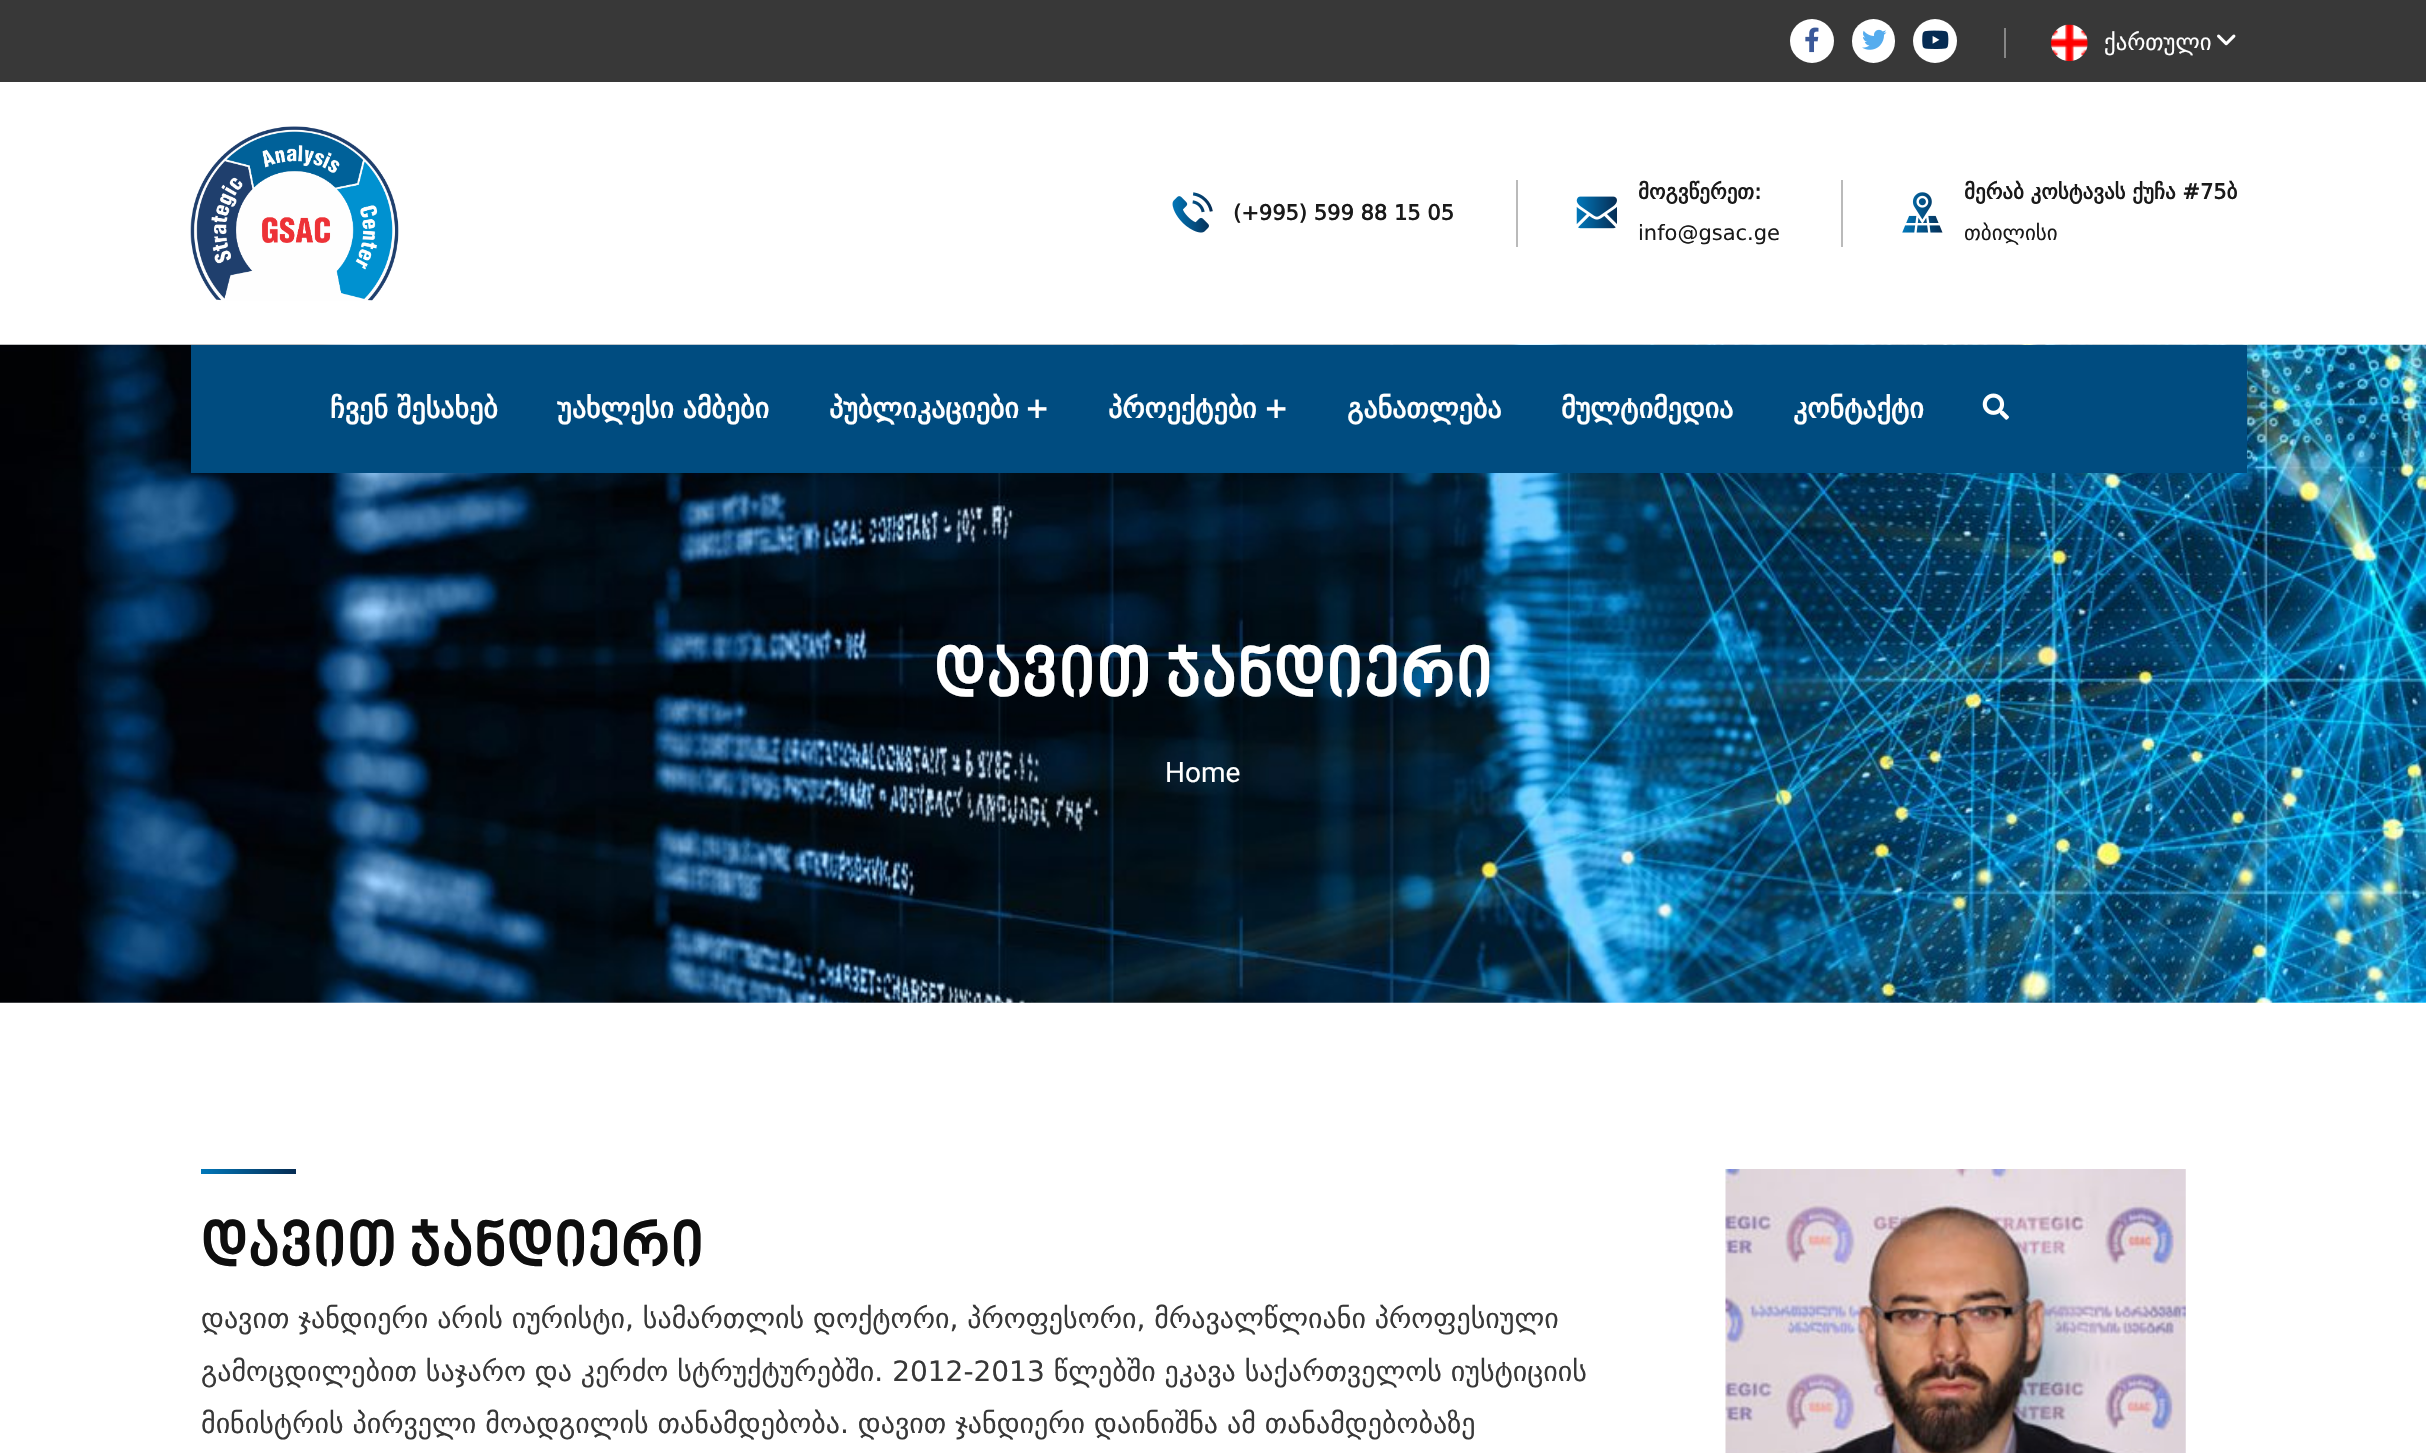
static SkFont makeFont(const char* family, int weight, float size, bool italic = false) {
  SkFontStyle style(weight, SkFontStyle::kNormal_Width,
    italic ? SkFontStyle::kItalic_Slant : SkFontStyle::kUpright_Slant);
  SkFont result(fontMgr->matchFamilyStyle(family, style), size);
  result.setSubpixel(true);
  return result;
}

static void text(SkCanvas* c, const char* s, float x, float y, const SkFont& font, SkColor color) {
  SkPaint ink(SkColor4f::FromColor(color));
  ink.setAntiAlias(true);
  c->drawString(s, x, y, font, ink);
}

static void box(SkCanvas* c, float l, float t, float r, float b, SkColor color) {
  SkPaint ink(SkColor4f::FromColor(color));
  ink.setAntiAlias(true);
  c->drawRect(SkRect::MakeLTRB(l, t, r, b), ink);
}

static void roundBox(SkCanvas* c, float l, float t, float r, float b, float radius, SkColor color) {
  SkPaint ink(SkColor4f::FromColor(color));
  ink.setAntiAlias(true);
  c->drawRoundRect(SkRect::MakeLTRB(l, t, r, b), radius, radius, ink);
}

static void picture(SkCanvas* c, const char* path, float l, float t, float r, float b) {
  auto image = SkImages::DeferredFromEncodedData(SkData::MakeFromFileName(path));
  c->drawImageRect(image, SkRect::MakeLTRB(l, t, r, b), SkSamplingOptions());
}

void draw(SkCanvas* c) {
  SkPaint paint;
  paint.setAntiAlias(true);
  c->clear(0xffffffff);
  box(c, 0, 0, 2426, 82, 0xff383838);
  paint.setColor(0xffffffff);
  c->drawCircle(1812, 41, 22, paint);
  picture(c, "img_01.png", 1805, 27, 1819, 53);
  roundBox(c, 1852, 19, 1895, 63, 21.5f, 0xffffffff);
  picture(c, "img_02.png", 1862, 29, 1887, 50);
  c->drawCircle(1935, 41, 22, paint);
  picture(c, "img_03.png", 1922, 30, 1949, 49);
  box(c, 2004, 28, 2006, 58, 0xff868686);
  picture(c, "img_04.png", 2051, 24, 2088, 62);
  SkFont face1 = makeFont("DejaVu Sans", 400, 22.75f);
  text(c, "ქართული", 2104, 50, face1, 0xffffffff);
  picture(c, "img_05.png", 2217, 34, 2236, 46);
  picture(c, "img_06.png", 190, 126, 399, 301);
  picture(c, "img_07.png", 1172, 192, 1213, 233);
  SkFont face2 = makeFont("DejaVu Sans", 700, 21);
  text(c, "(+995) 599 88 15 05", 1233, 220, face2, 0xff1a1a1a);
  box(c, 1516, 180, 1518, 247, 0xffbababa);
  picture(c, "img_08.png", 1576, 196, 1617, 229);
  text(c, "მოგვწერეთ:", 1638, 199, face2, 0xff1a1a1a);
  SkFont face3 = makeFont("DejaVu Sans", 400, 21);
  text(c, "info@gsac.ge", 1638, 240, face3, 0xff1a1a1a);
  box(c, 1841, 180, 1843, 247, 0xffbababa);
  picture(c, "img_09.png", 1902, 192, 1943, 233);
  text(c, "მერაბ კოსტავას ქუჩა #75ბ", 1964, 199, face2, 0xff1a1a1a);
  text(c, "თბილისი", 1964, 240, face3, 0xff1a1a1a);
  picture(c, "img_11.png", 0, 344, 2426, 1003);
  box(c, 191, 345, 2247, 473, 0xff004c80);
  SkFont face4 = makeFont("DejaVu Sans", 700, 28);
  text(c, "ჩვენ შესახებ", 330, 418, face4, 0xffffffff);
  text(c, "უახლესი ამბები", 557, 418, face4, 0xffffffff);
  text(c, "პუბლიკაციები", 829, 418, face4, 0xffffffff);
  text(c, "+", 1025, 418, face4, 0xffffffff);
  text(c, "პროექტები", 1108, 418, face4, 0xffffffff);
  text(c, "+", 1264, 418, face4, 0xffffffff);
  text(c, "განათლება", 1347, 418, face4, 0xffffffff);
  text(c, "მულტიმედია", 1561, 418, face4, 0xffffffff);
  text(c, "კონტაქტი", 1793, 418, face4, 0xffffffff);
  picture(c, "img_10.png", 1982, 393, 2009, 420);
  SkFont face5 = makeFont("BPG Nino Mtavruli", 700, 70);
  text(c, "დავით ჯანდიერი", 934, 700, face5, 0xffffffff);
  SkFont face6 = makeFont("Roboto", 400, 28);
  text(c, "Home", 1165, 782, face6, 0xffffffff);
  {
    const SkColor colors[] = {0xff0178ba, 0xff062c53};
    const float stops[] = {0, 1};
    const SkPoint ends[] = {{201, 1172}, {296, 1172}};
    paint.setShader(SkGradientShader::MakeLinear(ends, colors, stops, 2, SkTileMode::kClamp));
    paint.setAlpha(255);
  }
  c->drawRect(SkRect::MakeLTRB(201, 1169, 296, 1174), paint);
  SkFont face7 = makeFont("BPG Nino Mtavruli", 700, 63);
  text(c, "დავით ჯანდიერი", 201, 1269, face7, 0xff0e0e0e);
  SkFont face8 = makeFont("DejaVu Sans", 400, 28);
  text(c, "დავით ჯანდიერი არის იურისტი, სამართლის დოქტორი, პროფესორი, მრავალწლიანი პროფესიული", 201, 1328, face8, 0xff383838);
  text(c, "გამოცდილებით საჯარო და კერძო სტრუქტურებში. 2012-2013 წლებში ეკავა საქართველოს იუსტიციის", 201, 1381, face8, 0xff383838);
  text(c, "მინისტრის პირველი მოადგილის თანამდებობა. დავით ჯანდიერი დაინიშნა ამ თანამდებობაზე", 201, 1433, face8, 0xff383838);
  picture(c, "img_12.png", 1725, 1169, 2186, 1453);
}
